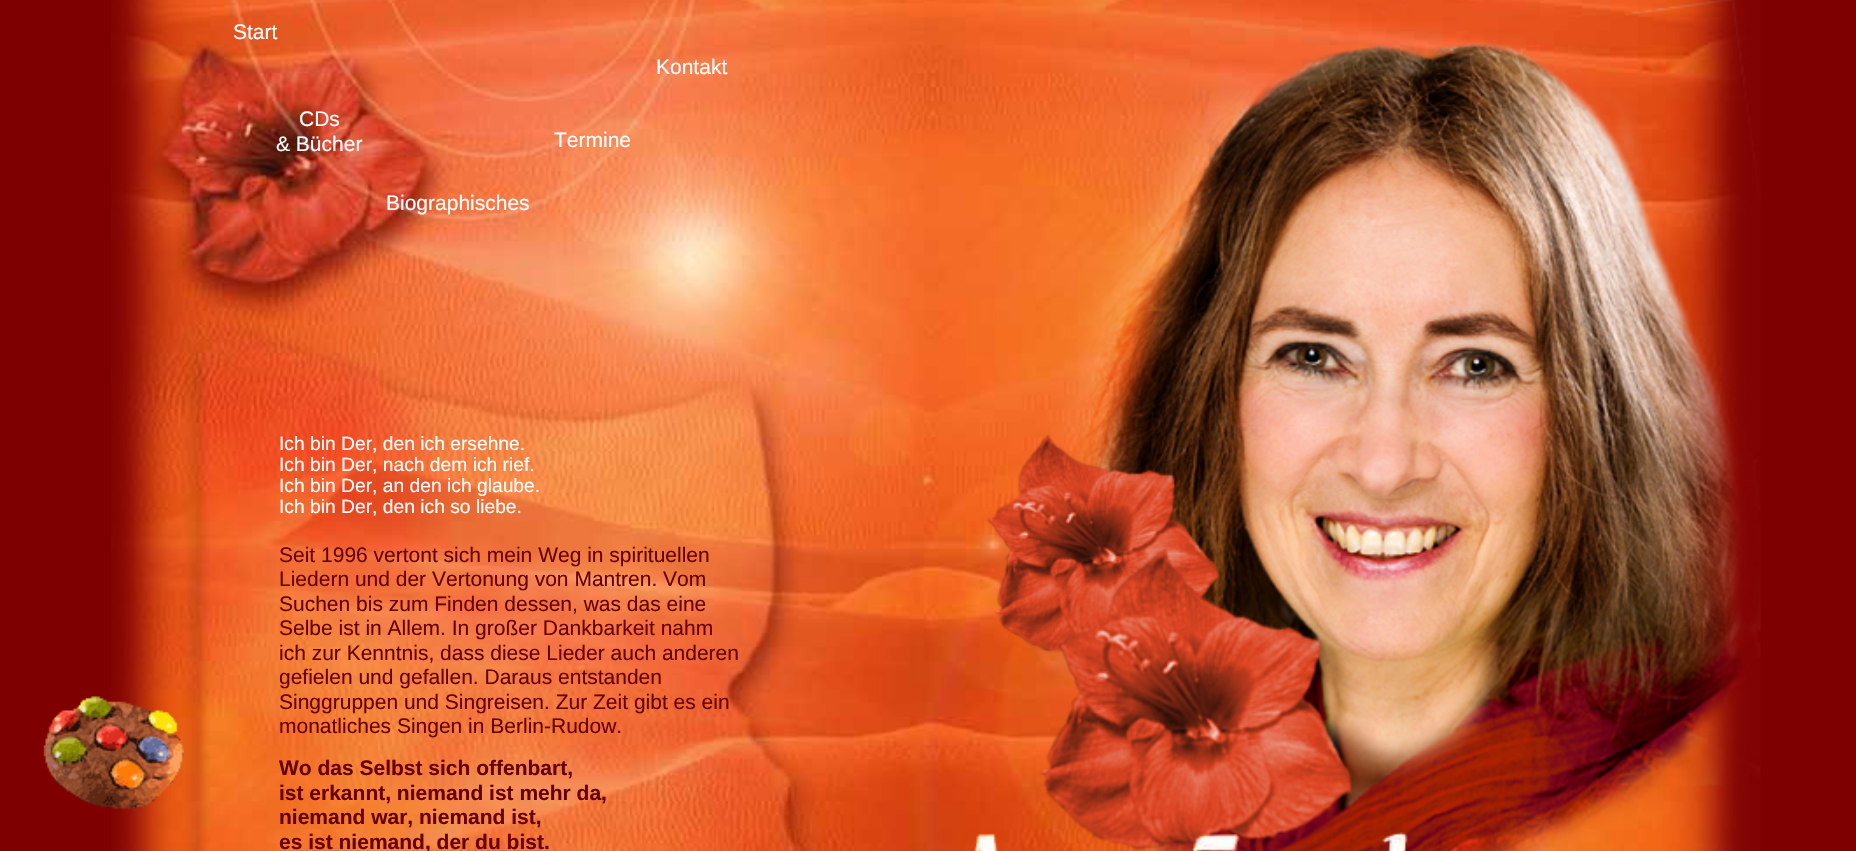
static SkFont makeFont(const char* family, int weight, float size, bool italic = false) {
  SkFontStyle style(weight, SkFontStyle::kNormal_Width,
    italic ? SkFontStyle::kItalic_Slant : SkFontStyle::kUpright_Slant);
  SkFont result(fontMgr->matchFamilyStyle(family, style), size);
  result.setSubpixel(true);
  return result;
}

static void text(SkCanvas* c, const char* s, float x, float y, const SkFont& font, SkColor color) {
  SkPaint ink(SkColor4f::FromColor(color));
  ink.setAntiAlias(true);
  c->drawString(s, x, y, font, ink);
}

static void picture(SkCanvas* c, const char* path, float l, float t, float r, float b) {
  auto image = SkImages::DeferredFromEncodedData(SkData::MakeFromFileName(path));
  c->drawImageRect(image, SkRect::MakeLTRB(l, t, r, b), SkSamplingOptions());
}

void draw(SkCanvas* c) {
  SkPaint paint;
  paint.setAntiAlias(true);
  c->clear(0xff7e0001);
  picture(c, "img_01.png", 111, 0, 1761, 851);
  SkFont face1 = makeFont("Liberation Sans", 400, 21);
  text(c, "Start", 233, 39, face1, 0xffffffff);
  text(c, "Kontakt", 656, 74, face1, 0xffffffff);
  text(c, "CDs", 299, 126, face1, 0xffffffff);
  text(c, "& Bücher", 276, 151, face1, 0xffffffff);
  text(c, "Termine", 554, 147, face1, 0xffffffff);
  text(c, "Biographisches", 386, 210, face1, 0xffffffff);
  picture(c, "img_02.png", 43, 696, 184, 809);
  SkFont face2 = makeFont("Liberation Sans", 400, 19.25f);
  text(c, "Ich bin Der, den ich ersehne.", 279, 450, face2, 0xffffffff);
  text(c, "Ich bin Der, nach dem ich rief.", 279, 471, face2, 0xffffffff);
  text(c, "Ich bin Der, an den ich glaube.", 279, 492, face2, 0xffffffff);
  text(c, "Ich bin Der, den ich so liebe.", 279, 513, face2, 0xffffffff);
  text(c, "Seit 1996 vertont sich mein Weg in spirituellen", 279, 562, face1, 0xff660000);
  text(c, "Liedern und der Vertonung von Mantren. Vom", 279, 586, face1, 0xff660000);
  text(c, "Suchen bis zum Finden dessen, was das eine", 279, 611, face1, 0xff660000);
  text(c, "Selbe ist in Allem. In großer Dankbarkeit nahm", 279, 635, face1, 0xff660000);
  text(c, "ich zur Kenntnis, dass diese Lieder auch anderen", 279, 660, face1, 0xff660000);
  text(c, "gefielen und gefallen. Daraus entstanden", 279, 684, face1, 0xff660000);
  text(c, "Singgruppen und Singreisen. Zur Zeit gibt es ein", 279, 709, face1, 0xff660000);
  text(c, "monatliches Singen in Berlin-Rudow.", 279, 733, face1, 0xff660000);
  SkFont face3 = makeFont("Liberation Sans", 700, 21);
  text(c, "Wo das Selbst sich offenbart,", 279, 775, face3, 0xff660000);
  text(c, "ist erkannt, niemand ist mehr da,", 279, 800, face3, 0xff660000);
  text(c, "niemand war, niemand ist,", 279, 824, face3, 0xff660000);
  text(c, "es ist niemand, der du bist.", 279, 849, face3, 0xff660000);
}
